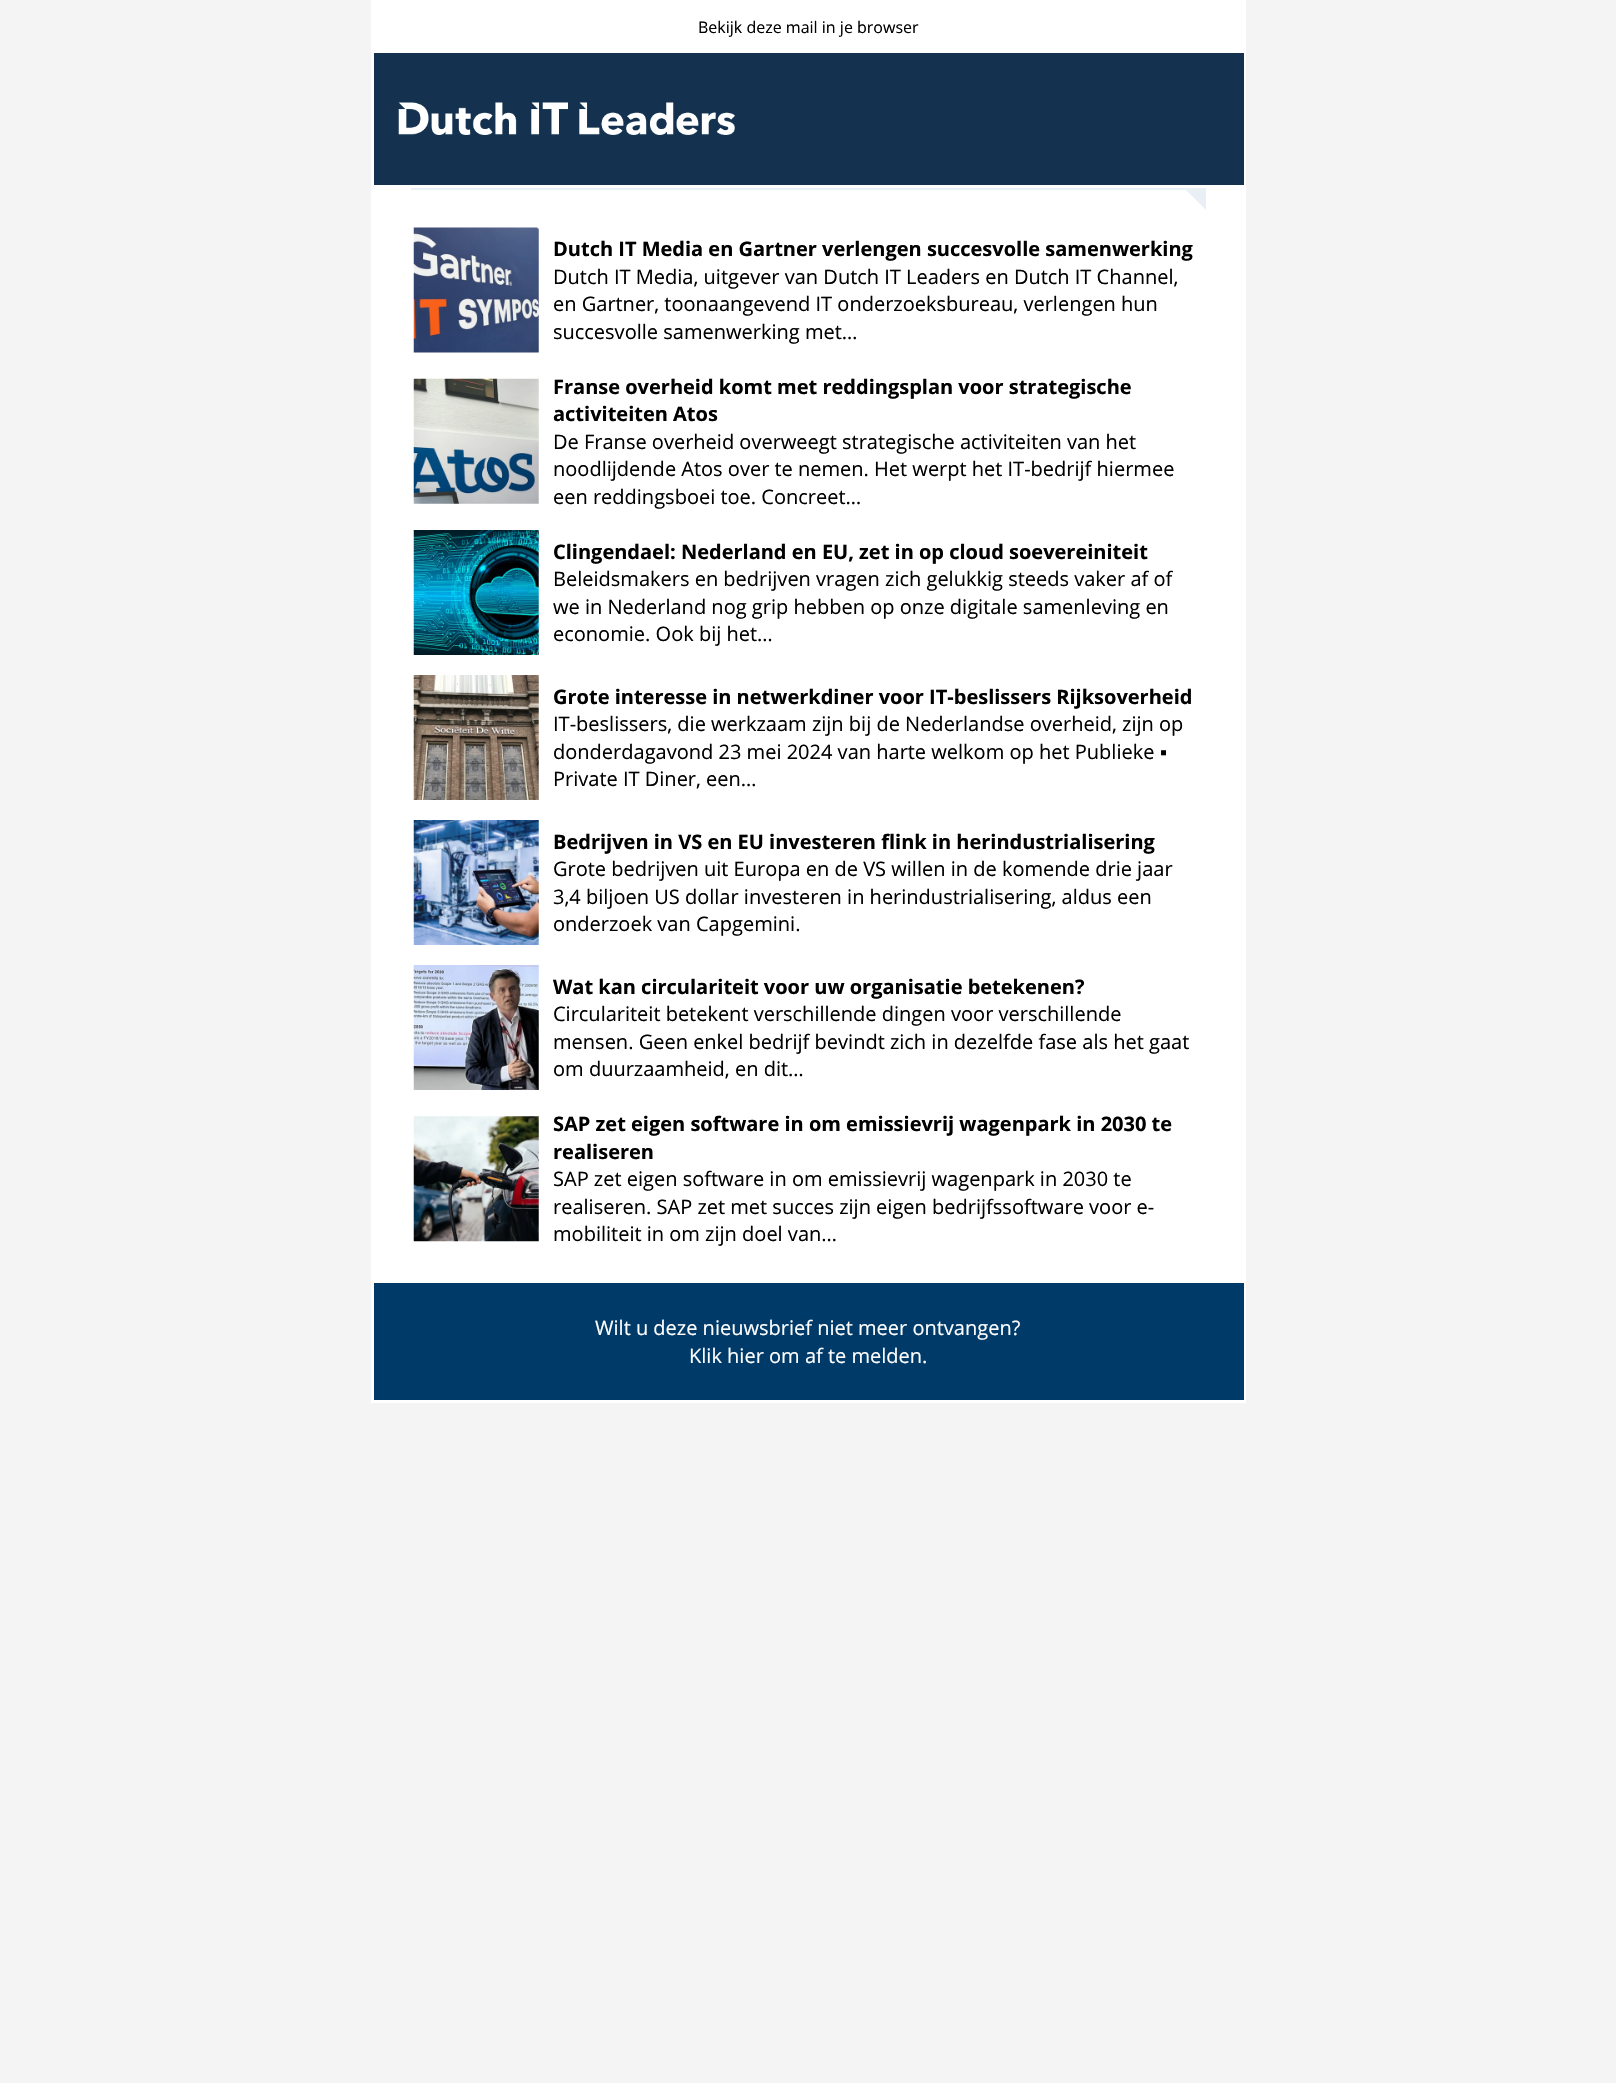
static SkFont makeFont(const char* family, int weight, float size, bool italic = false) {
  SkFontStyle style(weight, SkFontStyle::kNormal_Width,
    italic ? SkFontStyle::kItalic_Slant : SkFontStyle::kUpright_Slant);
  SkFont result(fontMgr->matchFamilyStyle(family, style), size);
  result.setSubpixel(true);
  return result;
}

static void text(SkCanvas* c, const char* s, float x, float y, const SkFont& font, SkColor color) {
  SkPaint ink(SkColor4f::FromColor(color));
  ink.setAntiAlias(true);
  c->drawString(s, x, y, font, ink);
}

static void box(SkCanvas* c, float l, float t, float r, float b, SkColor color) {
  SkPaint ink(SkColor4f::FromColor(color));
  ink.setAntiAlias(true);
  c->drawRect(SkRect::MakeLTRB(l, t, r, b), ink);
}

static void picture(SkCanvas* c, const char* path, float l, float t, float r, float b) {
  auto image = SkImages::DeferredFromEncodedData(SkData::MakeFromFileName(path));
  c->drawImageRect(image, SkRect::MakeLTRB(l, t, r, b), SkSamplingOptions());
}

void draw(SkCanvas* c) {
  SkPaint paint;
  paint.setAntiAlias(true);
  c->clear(0xfff4f4f4);
  box(c, 371, 0, 1246, 1403, 0xffffffff);
  SkFont face1 = makeFont("Open Sans", 400, 16);
  text(c, "Bekijk deze mail in je browser", 698, 33, face1, 0xff000000);
  box(c, 374, 53, 1244, 185, 0xff14324f);
  picture(c, "img_01.png", 398, 102, 735, 135);
  box(c, 411, 188, 1206, 190, 0xffe9eff4);
  paint.setColor(0xffe9eff4);
  c->drawPath(SkPathBuilder().moveTo(1206, 190).lineTo(1206, 210).lineTo(1186, 190).close().detach(), paint);
  picture(c, "img_02.png", 413, 227, 539, 353);
  SkFont face2 = makeFont("Open Sans", 700, 20);
  text(c, "Dutch IT Media en Gartner verlengen succesvolle samenwerking", 553, 256, face2, 0xff000000);
  SkFont face3 = makeFont("Open Sans", 400, 20);
  text(c, "Dutch IT Media, uitgever van Dutch IT Leaders en Dutch IT Channel,", 553, 284, face3, 0xff000000);
  text(c, "en Gartner, toonaangevend IT onderzoeksbureau, verlengen hun", 553, 311, face3, 0xff000000);
  text(c, "succesvolle samenwerking met…", 553, 339, face3, 0xff000000);
  picture(c, "img_03.png", 413, 378, 539, 504);
  text(c, "Franse overheid komt met reddingsplan voor strategische", 553, 394, face2, 0xff000000);
  text(c, "activiteiten Atos", 553, 421, face2, 0xff000000);
  text(c, "De Franse overheid overweegt strategische activiteiten van het", 553, 449, face3, 0xff000000);
  text(c, "noodlijdende Atos over te nemen. Het werpt het IT-bedrijf hiermee", 553, 476, face3, 0xff000000);
  text(c, "een reddingsboei toe. Concreet…", 553, 504, face3, 0xff000000);
  picture(c, "img_04.png", 413, 530, 539, 655);
  text(c, "Clingendael: Nederland en EU, zet in op cloud soevereiniteit", 553, 559, face2, 0xff000000);
  text(c, "Beleidsmakers en bedrijven vragen zich gelukkig steeds vaker af of", 553, 586, face3, 0xff000000);
  text(c, "we in Nederland nog grip hebben op onze digitale samenleving en", 553, 614, face3, 0xff000000);
  text(c, "economie. Ook bij het…", 553, 641, face3, 0xff000000);
  picture(c, "img_05.png", 413, 675, 539, 800);
  text(c, "Grote interesse in netwerkdiner voor IT-beslissers Rijksoverheid", 553, 704, face2, 0xff000000);
  text(c, "IT-beslissers, die werkzaam zijn bij de Nederlandse overheid, zijn op", 553, 731, face3, 0xff000000);
  text(c, "donderdagavond 23 mei 2024 van harte welkom op het Publieke", 553, 759, face3, 0xff000000);
  SkFont face4 = makeFont("Liberation Sans", 400, 20);
  text(c, "▪", 1160, 759, face4, 0xff000000);
  text(c, "Private IT Diner, een…", 553, 786, face3, 0xff000000);
  picture(c, "img_06.png", 413, 820, 539, 945);
  text(c, "Bedrijven in VS en EU investeren flink in herindustrialisering", 553, 849, face2, 0xff000000);
  text(c, "Grote bedrijven uit Europa en de VS willen in de komende drie jaar", 553, 876, face3, 0xff000000);
  text(c, "3,4 biljoen US dollar investeren in herindustrialisering, aldus een", 553, 904, face3, 0xff000000);
  text(c, "onderzoek van Capgemini.", 553, 931, face3, 0xff000000);
  picture(c, "img_07.png", 413, 965, 539, 1090);
  text(c, "Wat kan circulariteit voor uw organisatie betekenen?", 553, 994, face2, 0xff000000);
  text(c, "Circulariteit betekent verschillende dingen voor verschillende", 553, 1021, face3, 0xff000000);
  text(c, "mensen. Geen enkel bedrijf bevindt zich in dezelfde fase als het gaat", 553, 1049, face3, 0xff000000);
  text(c, "om duurzaamheid, en dit…", 553, 1076, face3, 0xff000000);
  picture(c, "img_08.png", 413, 1116, 539, 1242);
  text(c, "SAP zet eigen software in om emissievrij wagenpark in 2030 te", 553, 1131, face2, 0xff000000);
  text(c, "realiseren", 553, 1159, face2, 0xff000000);
  text(c, "SAP zet eigen software in om emissievrij wagenpark in 2030 te", 553, 1186, face3, 0xff000000);
  text(c, "realiseren. SAP zet met succes zijn eigen bedrijfssoftware voor e-", 553, 1214, face3, 0xff000000);
  text(c, "mobiliteit in om zijn doel van…", 553, 1241, face3, 0xff000000);
  box(c, 374, 1283, 1244, 1400, 0xff003a69);
  text(c, "Wilt u deze nieuwsbrief niet meer ontvangen?", 595, 1335, face3, 0xffffffff);
  text(c, "Klik hier om af te melden.", 689, 1363, face3, 0xffffffff);
}
